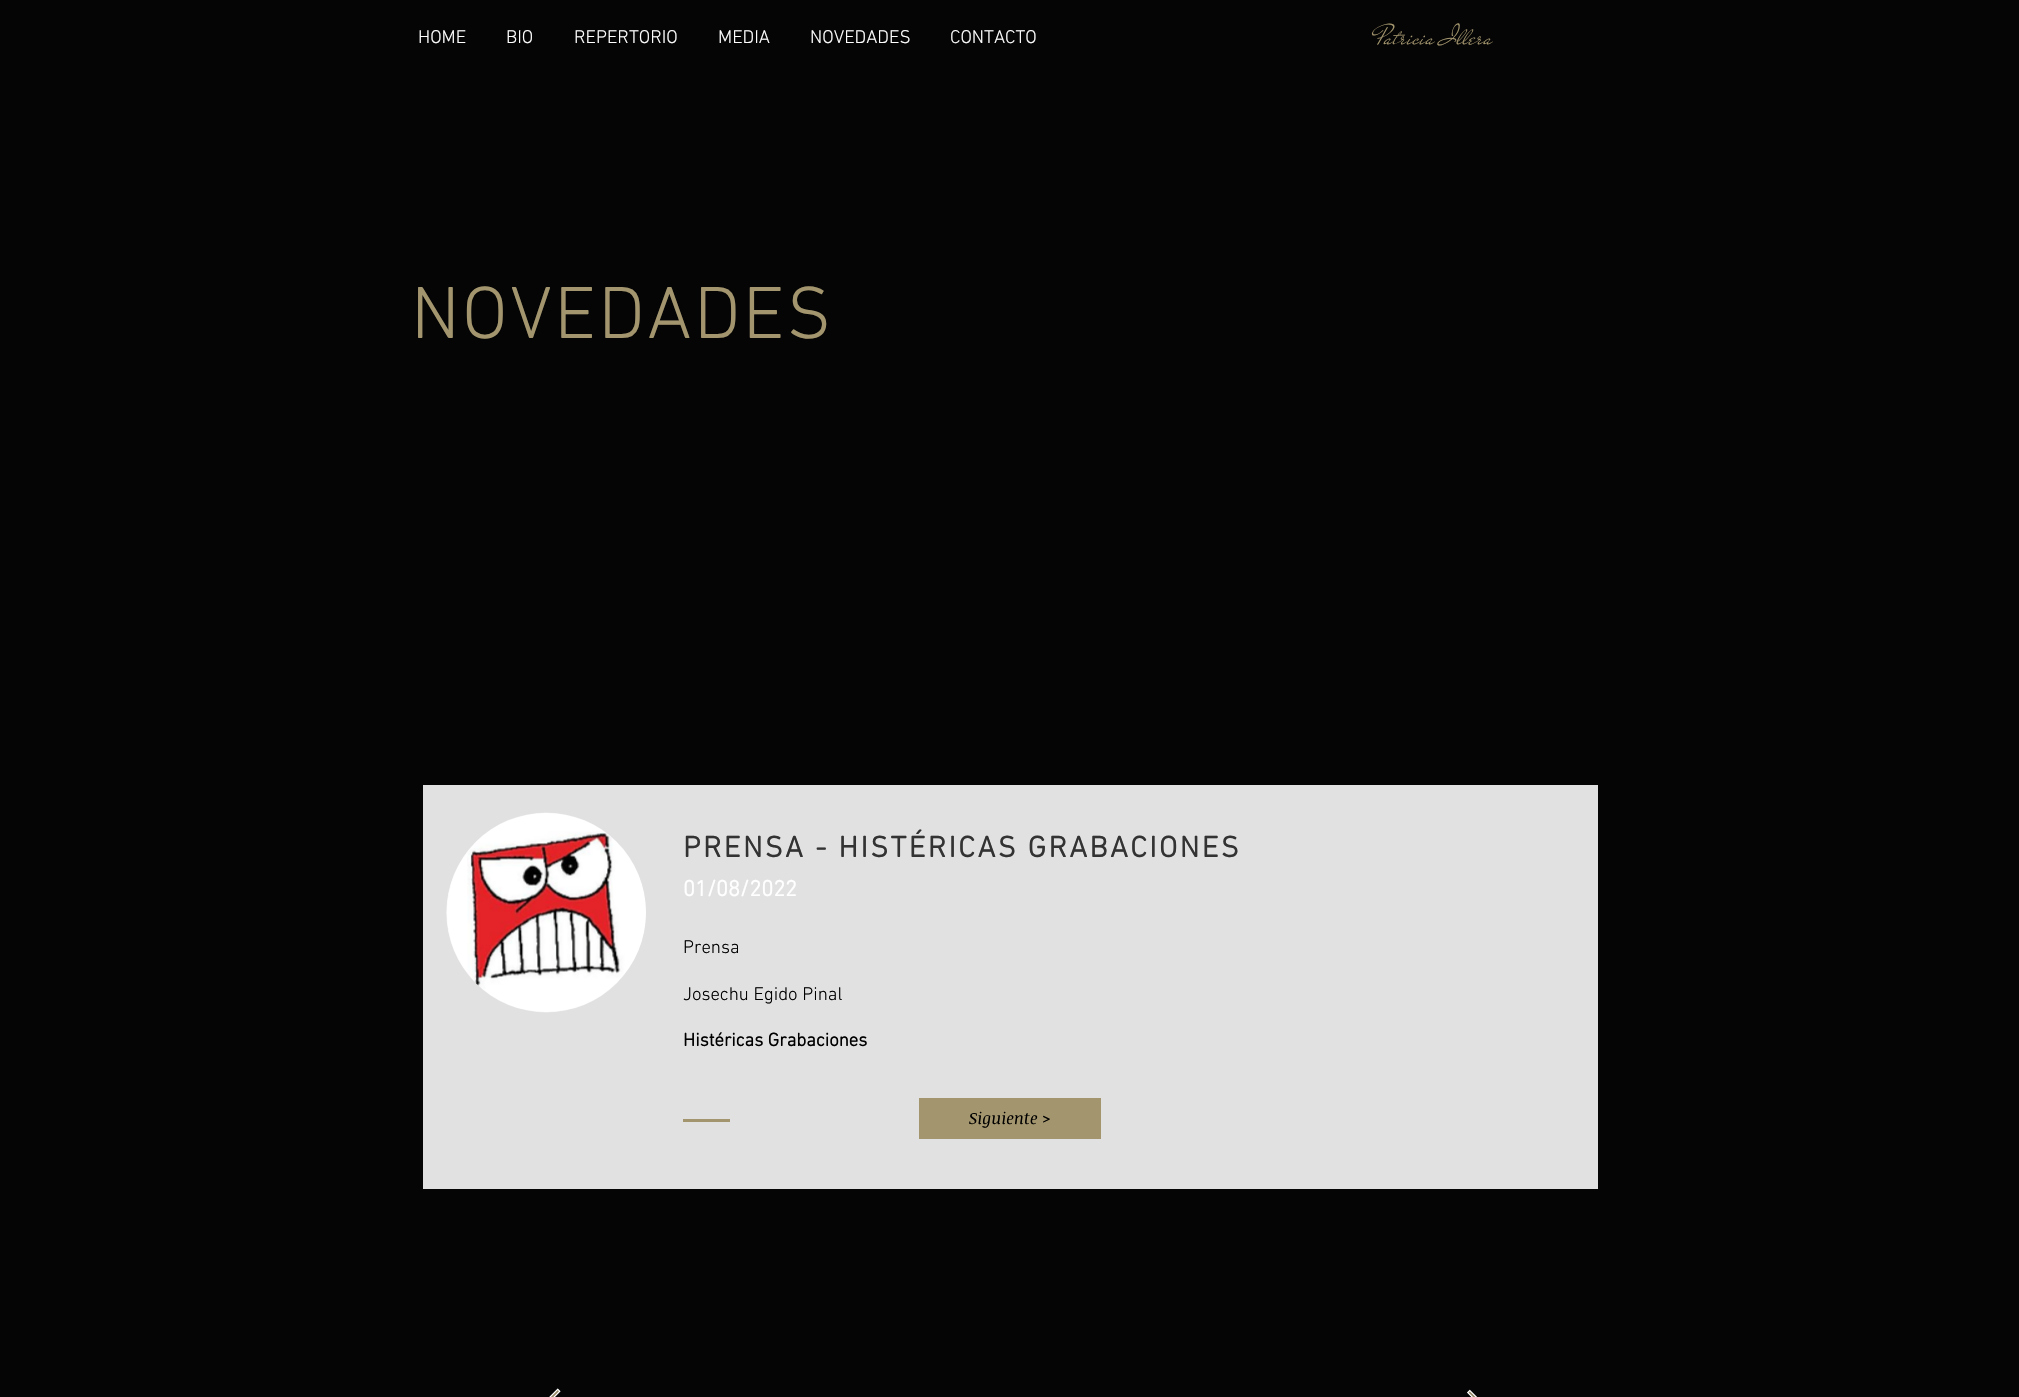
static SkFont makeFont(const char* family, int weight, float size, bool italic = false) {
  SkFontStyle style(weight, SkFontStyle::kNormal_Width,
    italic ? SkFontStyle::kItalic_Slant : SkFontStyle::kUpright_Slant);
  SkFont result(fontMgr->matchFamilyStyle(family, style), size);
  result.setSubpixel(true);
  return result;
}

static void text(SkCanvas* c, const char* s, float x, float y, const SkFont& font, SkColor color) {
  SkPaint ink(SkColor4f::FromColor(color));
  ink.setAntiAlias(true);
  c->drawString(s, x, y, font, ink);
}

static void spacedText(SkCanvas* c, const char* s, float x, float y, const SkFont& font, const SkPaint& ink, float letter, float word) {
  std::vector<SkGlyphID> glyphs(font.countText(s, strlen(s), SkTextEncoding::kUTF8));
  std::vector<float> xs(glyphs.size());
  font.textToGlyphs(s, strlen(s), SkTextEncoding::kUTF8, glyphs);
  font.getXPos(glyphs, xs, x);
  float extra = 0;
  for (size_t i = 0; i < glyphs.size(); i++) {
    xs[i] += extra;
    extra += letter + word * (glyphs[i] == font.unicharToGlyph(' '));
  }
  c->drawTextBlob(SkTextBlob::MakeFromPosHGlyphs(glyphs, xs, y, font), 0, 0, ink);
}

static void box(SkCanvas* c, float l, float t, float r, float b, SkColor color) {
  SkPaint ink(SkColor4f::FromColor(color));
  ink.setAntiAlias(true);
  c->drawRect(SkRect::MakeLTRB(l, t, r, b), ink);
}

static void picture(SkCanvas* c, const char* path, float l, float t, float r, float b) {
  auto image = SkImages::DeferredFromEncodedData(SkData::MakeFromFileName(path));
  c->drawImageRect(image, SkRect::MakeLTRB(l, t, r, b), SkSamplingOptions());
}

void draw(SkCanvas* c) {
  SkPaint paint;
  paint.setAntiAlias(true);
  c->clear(0xff050505);
  SkFont face1 = makeFont("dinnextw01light", 300, 18.75f);
  text(c, "HOME", 418, 43, face1, 0xffffffff);
  text(c, "BIO", 506, 43, face1, 0xffffffff);
  text(c, "REPERTORIO", 574, 43, face1, 0xffffffff);
  text(c, "MEDIA", 718, 43, face1, 0xffffffff);
  text(c, "NOVEDADES", 810, 43, face1, 0xffffffff);
  text(c, "CONTACTO", 950, 43, face1, 0xffffffff);
  SkFont face2 = makeFont("Mr De Haviland", 400, 27.5f);
  paint.setColor(0xffa3956d);
  spacedText(c, "Patricia Illera", 1376, 44, face2, paint, 0.8f, 0);
  SkFont face3 = makeFont("dinnextw01light", 300, 75);
  spacedText(c, "NOVEDADES", 411, 338, face3, paint, 2.25f, 0);
  box(c, 423, 785, 1598, 1189, 0xffe1e1e1);
  picture(c, "img_01.png", 446, 812, 646, 1013);
  SkFont face4 = makeFont("dinnextw01light", 700, 30);
  paint.setColor(0xff333333);
  spacedText(c, "PRENSA - HISTÉRICAS GRABACIONES", 683, 857, face4, paint, 2.4f, 0);
  SkFont face5 = makeFont("dinnextw01light", 700, 22.5f);
  text(c, "01/08/2022", 683, 896, face5, 0xffffffff);
  text(c, "Prensa", 683, 953, face1, 0xff000000);
  text(c, "Josechu Egido Pinal", 683, 1000, face1, 0xff000000);
  SkFont face6 = makeFont("dinnextw01light", 700, 18.75f);
  text(c, "Histéricas Grabaciones", 683, 1046, face6, 0xff000000);
  box(c, 683, 1119, 730, 1122, 0xffa3956d);
  box(c, 919, 1098, 1101, 1139, 0xffa3956d);
  SkFont face7 = makeFont("Noticia Text", 400, 16.25f, true);
  text(c, "Siguiente >", 969, 1124, face7, 0xff000000);
  picture(c, "img_02.png", 549, 1388, 561, 1397);
  picture(c, "img_03.png", 1467, 1389, 1477, 1397);
}
